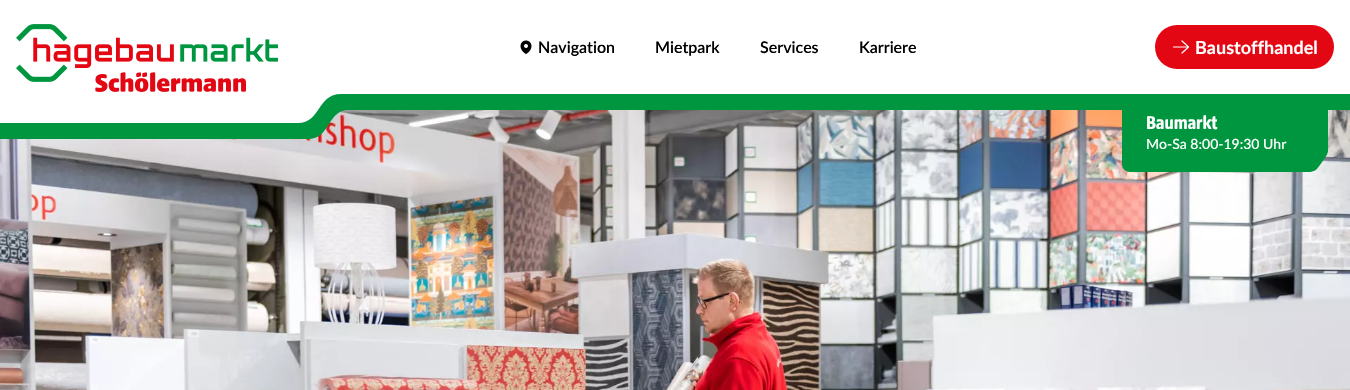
static SkFont makeFont(const char* family, int weight, float size, bool italic = false) {
  SkFontStyle style(weight, SkFontStyle::kNormal_Width,
    italic ? SkFontStyle::kItalic_Slant : SkFontStyle::kUpright_Slant);
  SkFont result(fontMgr->matchFamilyStyle(family, style), size);
  result.setSubpixel(true);
  return result;
}

static void text(SkCanvas* c, const char* s, float x, float y, const SkFont& font, SkColor color) {
  SkPaint ink(SkColor4f::FromColor(color));
  ink.setAntiAlias(true);
  c->drawString(s, x, y, font, ink);
}

static void box(SkCanvas* c, float l, float t, float r, float b, SkColor color) {
  SkPaint ink(SkColor4f::FromColor(color));
  ink.setAntiAlias(true);
  c->drawRect(SkRect::MakeLTRB(l, t, r, b), ink);
}

static void roundBox(SkCanvas* c, float l, float t, float r, float b, float radius, SkColor color) {
  SkPaint ink(SkColor4f::FromColor(color));
  ink.setAntiAlias(true);
  c->drawRoundRect(SkRect::MakeLTRB(l, t, r, b), radius, radius, ink);
}

static void picture(SkCanvas* c, const char* path, float l, float t, float r, float b) {
  auto image = SkImages::DeferredFromEncodedData(SkData::MakeFromFileName(path));
  c->drawImageRect(image, SkRect::MakeLTRB(l, t, r, b), SkSamplingOptions());
}

void draw(SkCanvas* c) {
  SkPaint paint;
  paint.setAntiAlias(true);
  c->clear(0xffffffff);
  box(c, 346, 94, 1350, 110, 0xff009640);
  picture(c, "img_01.png", 16, 24, 278, 92);
  picture(c, "img_03.png", 0, 110, 1350, 390);
  paint.setColor(0xffffffff);
  c->drawPath(SkPathBuilder().moveTo(356, 94).lineTo(-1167, 94).lineTo(-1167, 132).lineTo(303, 132).close().detach(), paint);
  paint.setColor(0xff009640);
  c->drawPath(SkPathBuilder().moveTo(341, 94).cubicTo(317, 94, 321, 123, 298, 123).lineTo(-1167, 123).lineTo(-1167, 139).lineTo(308, 139).cubicTo(328, 139, 327, 117, 342, 111).cubicTo(347, 109, 353, 110, 359, 110).lineTo(359, 94).close().detach(), paint);
  picture(c, "img_02.png", 520, 40, 532, 54);
  SkFont face1 = makeFont("Lato", 600, 16);
  text(c, "Navigation", 538, 53, face1, 0xff000000);
  text(c, "Mietpark", 655, 53, face1, 0xff000000);
  text(c, "Services", 760, 53, face1, 0xff000000);
  text(c, "Karriere", 859, 53, face1, 0xff000000);
  roundBox(c, 1155, 25, 1334, 69, 22, 0xffe30613);
  paint.setStyle(SkPaint::kStroke_Style);
  paint.setStrokeWidth(1.2f);
  paint.setStrokeCap(SkPaint::kRound_Cap);
  paint.setStrokeJoin(SkPaint::kRound_Join);
  paint.setColor(0xffffffff);
  c->drawPath(SkPathBuilder().moveTo(1182, 41).lineTo(1188.5f, 47).moveTo(1188.5f, 47).lineTo(1182, 53).moveTo(1188.5f, 47).lineTo(1173.5f, 47).detach(), paint);
  SkFont face2 = makeFont("Lato", 700, 18);
  text(c, "Baustoffhandel", 1195, 54, face2, 0xffffffff);
  paint.setStyle(SkPaint::kFill_Style);
  paint.setColor(0xff009640);
  c->drawPath(SkPathBuilder().moveTo(1122, 106).lineTo(1310, 106).lineTo(1310, 172).lineTo(1130, 172).cubicTo(1125.5f, 172, 1122, 168.5f, 1122, 164).close().detach(), paint);
  SkFont face3 = makeFont("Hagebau", 700, 20);
  text(c, "Baumarkt", 1146, 129, face3, 0xffffffff);
  SkFont face4 = makeFont("Lato", 500, 14);
  text(c, "Mo-Sa 8:00-19:30 Uhr", 1146, 149, face4, 0xffffffff);
  c->save();
  c->clipRect(SkRect::MakeLTRB(1308, 106, 1328, 172));
  c->drawPath(SkPathBuilder().moveTo(1308, 106).lineTo(1328, 106).lineTo(1328, 136).cubicTo(1328, 155, 1330, 151, 1320, 165).cubicTo(1316, 170, 1315, 172, 1308, 172).detach(), paint);
  c->restore();
}
